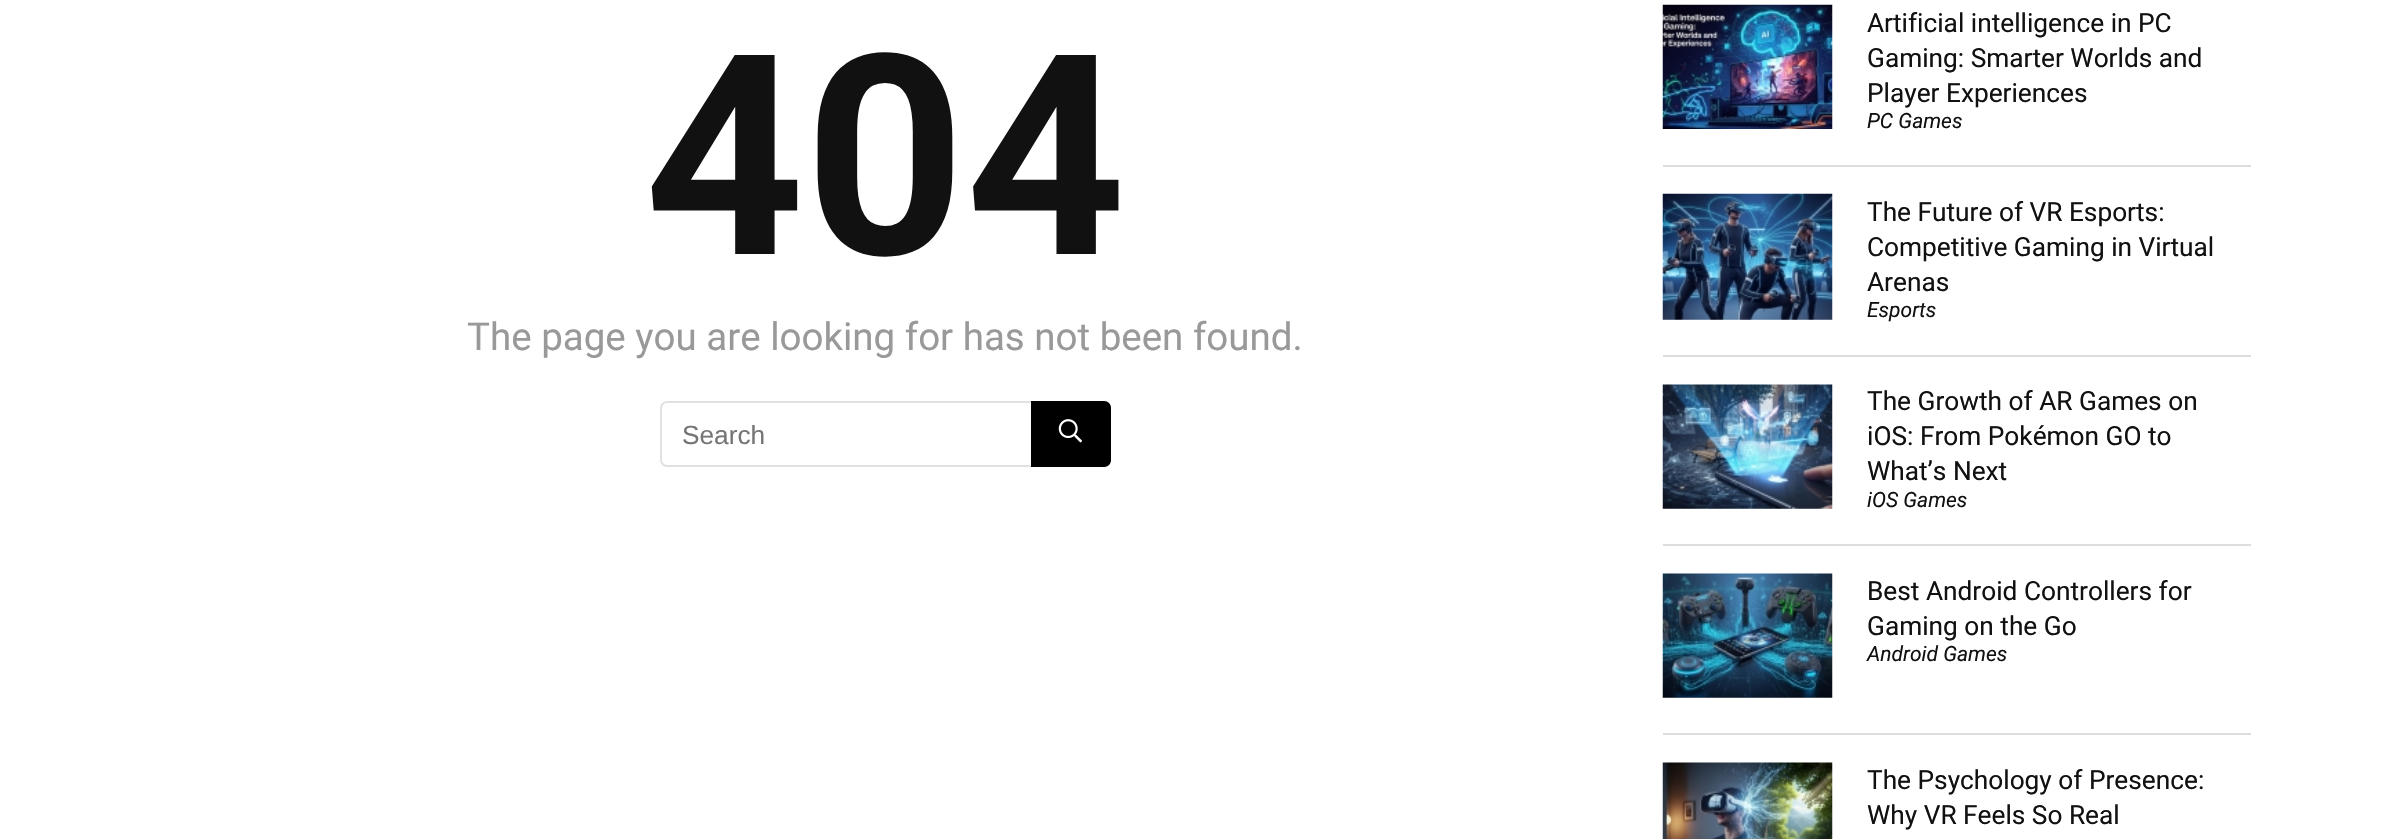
static SkFont makeFont(const char* family, int weight, float size, bool italic = false) {
  SkFontStyle style(weight, SkFontStyle::kNormal_Width,
    italic ? SkFontStyle::kItalic_Slant : SkFontStyle::kUpright_Slant);
  SkFont result(fontMgr->matchFamilyStyle(family, style), size);
  result.setSubpixel(true);
  return result;
}

static void text(SkCanvas* c, const char* s, float x, float y, const SkFont& font, SkColor color) {
  SkPaint ink(SkColor4f::FromColor(color));
  ink.setAntiAlias(true);
  c->drawString(s, x, y, font, ink);
}

static void box(SkCanvas* c, float l, float t, float r, float b, SkColor color) {
  SkPaint ink(SkColor4f::FromColor(color));
  ink.setAntiAlias(true);
  c->drawRect(SkRect::MakeLTRB(l, t, r, b), ink);
}

static void picture(SkCanvas* c, const char* path, float l, float t, float r, float b) {
  auto image = SkImages::DeferredFromEncodedData(SkData::MakeFromFileName(path));
  c->drawImageRect(image, SkRect::MakeLTRB(l, t, r, b), SkSamplingOptions());
}

void draw(SkCanvas* c) {
  SkPaint paint;
  paint.setAntiAlias(true);
  c->clear(0xffffffff);
  SkFont face1 = makeFont("Roboto", 700, 280);
  text(c, "404", 644, 254, face1, 0xff111111);
  SkFont face2 = makeFont("Roboto", 400, 38.5f);
  text(c, "The page you are looking for has not been found.", 467, 350, face2, 0xff999999);
  paint.setStyle(SkPaint::kStroke_Style);
  paint.setStrokeWidth(2);
  paint.setColor(0xffe1e1e1);
  c->drawRoundRect(SkRect::MakeLTRB(661, 402, 1110, 466), 6, 6, paint);
  SkFont face3 = makeFont("Liberation Sans", 400, 26.25f);
  text(c, "Search", 682, 444, face3, 0xff757575);
  paint.setStyle(SkPaint::kFill_Style);
  paint.setColor(0xff000000);
  c->drawPath(SkPathBuilder().moveTo(1031, 401).lineTo(1104, 401).cubicTo(1108, 401, 1111, 404, 1111, 408).lineTo(1111, 460).cubicTo(1111, 464, 1108, 467, 1104, 467).lineTo(1031, 467).close().detach(), paint);
  picture(c, "img_01.png", 1058, 419, 1082, 443);
  box(c, 1663, 165, 2251, 167, 0xffdddddd);
  picture(c, "img_02.png", 1662, 4, 1833, 129);
  SkFont face4 = makeFont("Roboto", 400, 26.25f);
  text(c, "Artificial intelligence in PC", 1867, 32, face4, 0xff111111);
  text(c, "Gaming: Smarter Worlds and", 1867, 67, face4, 0xff111111);
  text(c, "Player Experiences", 1867, 102, face4, 0xff111111);
  SkFont face5 = makeFont("Roboto", 400, 21, true);
  text(c, "PC Games", 1867, 128, face5, 0xff111111);
  box(c, 1663, 355, 2251, 357, 0xffdddddd);
  picture(c, "img_03.png", 1662, 193, 1833, 320);
  text(c, "The Future of VR Esports:", 1867, 221, face4, 0xff111111);
  text(c, "Competitive Gaming in Virtual", 1867, 256, face4, 0xff111111);
  text(c, "Arenas", 1867, 291, face4, 0xff111111);
  text(c, "Esports", 1867, 317, face5, 0xff111111);
  box(c, 1663, 544, 2251, 546, 0xffdddddd);
  picture(c, "img_04.png", 1662, 384, 1833, 509);
  text(c, "The Growth of AR Games on", 1867, 410, face4, 0xff111111);
  text(c, "iOS: From Pokémon GO to", 1867, 445, face4, 0xff111111);
  text(c, "What’s Next", 1867, 480, face4, 0xff111111);
  text(c, "iOS Games", 1867, 507, face5, 0xff111111);
  box(c, 1663, 733, 2251, 735, 0xffdddddd);
  picture(c, "img_05.png", 1662, 573, 1833, 698);
  text(c, "Best Android Controllers for", 1867, 600, face4, 0xff111111);
  text(c, "Gaming on the Go", 1867, 635, face4, 0xff111111);
  text(c, "Android Games", 1867, 661, face5, 0xff111111);
  picture(c, "img_06.png", 1662, 762, 1833, 839);
  text(c, "The Psychology of Presence:", 1867, 789, face4, 0xff111111);
  text(c, "Why VR Feels So Real", 1867, 824, face4, 0xff111111);
}
